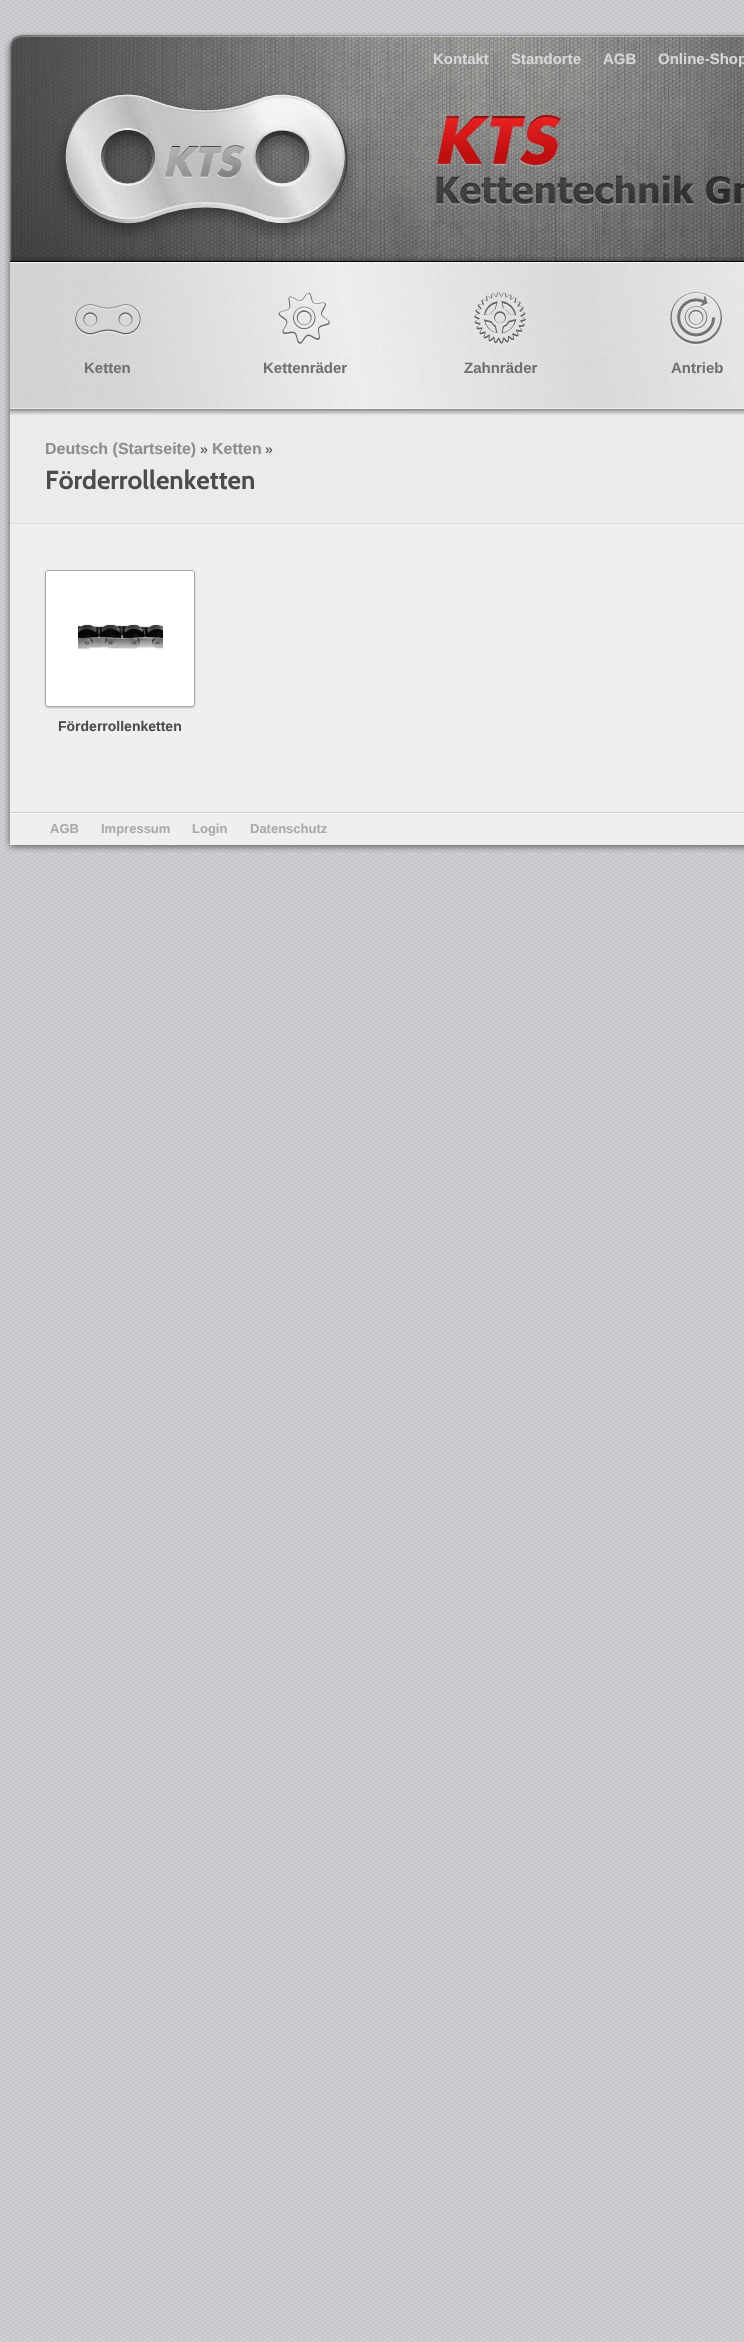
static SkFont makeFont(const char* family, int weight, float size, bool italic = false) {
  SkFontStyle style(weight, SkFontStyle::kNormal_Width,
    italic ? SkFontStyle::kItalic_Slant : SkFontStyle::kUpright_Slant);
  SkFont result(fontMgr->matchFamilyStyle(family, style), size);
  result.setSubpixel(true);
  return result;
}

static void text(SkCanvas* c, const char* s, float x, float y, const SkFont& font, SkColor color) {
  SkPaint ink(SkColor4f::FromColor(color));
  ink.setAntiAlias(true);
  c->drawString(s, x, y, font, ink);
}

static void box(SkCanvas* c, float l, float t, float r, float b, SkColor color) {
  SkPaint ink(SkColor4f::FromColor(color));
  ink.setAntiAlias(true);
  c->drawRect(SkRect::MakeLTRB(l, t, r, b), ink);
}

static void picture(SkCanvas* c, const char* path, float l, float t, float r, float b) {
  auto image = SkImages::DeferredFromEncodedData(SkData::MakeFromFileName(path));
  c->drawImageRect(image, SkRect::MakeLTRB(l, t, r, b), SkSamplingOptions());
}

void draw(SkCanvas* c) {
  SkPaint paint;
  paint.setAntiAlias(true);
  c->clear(0xffffffff);
  picture(c, "img_01.png", 0, 0, 744, 2342);
  picture(c, "img_02.png", 4, 32, 744, 262);
  SkFont face1 = makeFont("Liberation Sans", 700, 15);
  text(c, "Kontakt", 433, 64, face1, 0xffd6d6d6);
  text(c, "Standorte", 511, 64, face1, 0xffd6d6d6);
  text(c, "AGB", 603, 64, face1, 0xffd6d6d6);
  text(c, "Online-Shop", 658, 64, face1, 0xffd6d6d6);
  picture(c, "img_03.png", 55, 92, 744, 239);
  picture(c, "img_09.png", 4, 409, 744, 835);
  box(c, 10, 409, 744, 525, 0xffebebeb);
  picture(c, "img_04.png", 4, 262, 744, 415);
  picture(c, "img_05.png", 75, 304, 141, 336);
  text(c, "Ketten", 84, 373, face1, 0xff717171);
  picture(c, "img_06.png", 278, 292, 330, 345);
  text(c, "Kettenräder", 263, 373, face1, 0xff717171);
  picture(c, "img_07.png", 474, 292, 526, 345);
  text(c, "Zahnräder", 464, 373, face1, 0xff717171);
  picture(c, "img_08.png", 670, 292, 722, 346);
  text(c, "Antrieb", 671, 373, face1, 0xff717171);
  picture(c, "img_10.png", 10, 523, 744, 525);
  SkFont face2 = makeFont("Liberation Sans", 700, 16);
  text(c, "Deutsch (Startseite)", 45, 454, face2, 0xff8d8d8d);
  SkFont face3 = makeFont("Liberation Sans", 400, 14);
  text(c, "»", 200, 454, face3, 0xff4c4c4c);
  text(c, "Ketten", 212, 454, face2, 0xff8d8d8d);
  text(c, "»", 265, 454, face3, 0xff4c4c4c);
  SkFont face4 = makeFont("Cabin", 700, 26);
  text(c, "Förderrollenketten", 45, 489, face4, 0xff4c4c4c);
  paint.setColor(0x33000000);
  paint.setMaskFilter(SkMaskFilter::MakeBlur(kNormal_SkBlurStyle, 1));
  c->drawRoundRect(SkRect::MakeLTRB(45, 571, 195, 708), 3, 3, paint);
  paint.setMaskFilter(nullptr);
  paint.setColor(0xffffffff);
  c->drawRoundRect(SkRect::MakeLTRB(45.5f, 570.5f, 194.5f, 706.5f), 2.5f, 2.5f, paint);
  paint.setStyle(SkPaint::kStroke_Style);
  paint.setStrokeWidth(1);
  paint.setColor(0xffaaaaaa);
  c->drawRoundRect(SkRect::MakeLTRB(45.5f, 570.5f, 194.5f, 706.5f), 2.5f, 2.5f, paint);
  picture(c, "img_11.png", 78, 624, 163, 650);
  SkFont face5 = makeFont("Liberation Sans", 700, 14);
  text(c, "Förderrollenketten", 58, 731, face5, 0xff4c4c4c);
  picture(c, "img_12.png", 4, 835, 744, 853);
  picture(c, "img_13.png", 10, 812, 744, 814);
  SkFont face6 = makeFont("Liberation Sans", 700, 13);
  text(c, "AGB", 50, 833, face6, 0xffaaaaaa);
  text(c, "Impressum", 101, 833, face6, 0xffaaaaaa);
  text(c, "Login", 192, 833, face6, 0xffaaaaaa);
  text(c, "Datenschutz", 250, 833, face6, 0xffaaaaaa);
}
